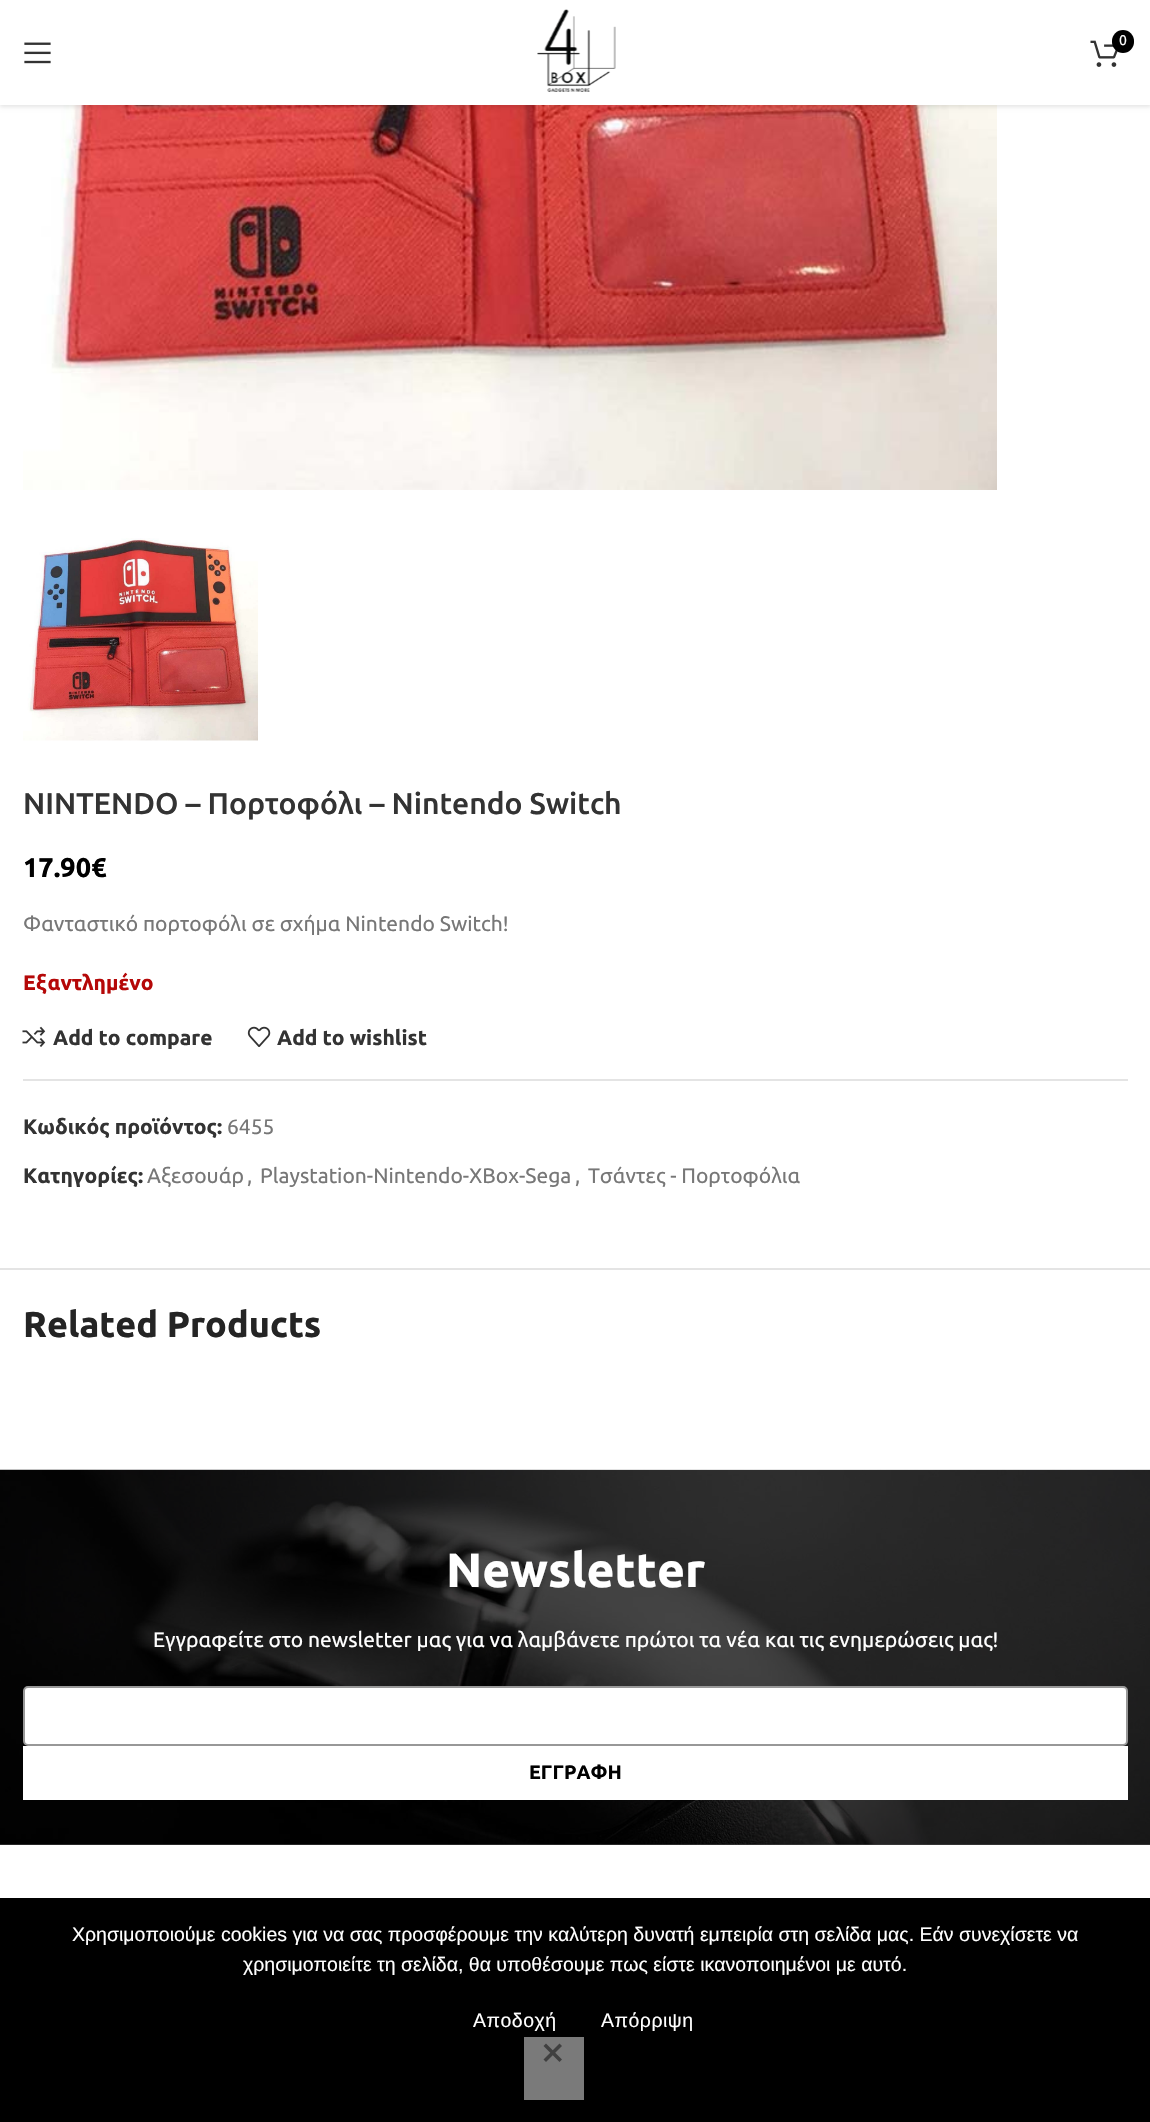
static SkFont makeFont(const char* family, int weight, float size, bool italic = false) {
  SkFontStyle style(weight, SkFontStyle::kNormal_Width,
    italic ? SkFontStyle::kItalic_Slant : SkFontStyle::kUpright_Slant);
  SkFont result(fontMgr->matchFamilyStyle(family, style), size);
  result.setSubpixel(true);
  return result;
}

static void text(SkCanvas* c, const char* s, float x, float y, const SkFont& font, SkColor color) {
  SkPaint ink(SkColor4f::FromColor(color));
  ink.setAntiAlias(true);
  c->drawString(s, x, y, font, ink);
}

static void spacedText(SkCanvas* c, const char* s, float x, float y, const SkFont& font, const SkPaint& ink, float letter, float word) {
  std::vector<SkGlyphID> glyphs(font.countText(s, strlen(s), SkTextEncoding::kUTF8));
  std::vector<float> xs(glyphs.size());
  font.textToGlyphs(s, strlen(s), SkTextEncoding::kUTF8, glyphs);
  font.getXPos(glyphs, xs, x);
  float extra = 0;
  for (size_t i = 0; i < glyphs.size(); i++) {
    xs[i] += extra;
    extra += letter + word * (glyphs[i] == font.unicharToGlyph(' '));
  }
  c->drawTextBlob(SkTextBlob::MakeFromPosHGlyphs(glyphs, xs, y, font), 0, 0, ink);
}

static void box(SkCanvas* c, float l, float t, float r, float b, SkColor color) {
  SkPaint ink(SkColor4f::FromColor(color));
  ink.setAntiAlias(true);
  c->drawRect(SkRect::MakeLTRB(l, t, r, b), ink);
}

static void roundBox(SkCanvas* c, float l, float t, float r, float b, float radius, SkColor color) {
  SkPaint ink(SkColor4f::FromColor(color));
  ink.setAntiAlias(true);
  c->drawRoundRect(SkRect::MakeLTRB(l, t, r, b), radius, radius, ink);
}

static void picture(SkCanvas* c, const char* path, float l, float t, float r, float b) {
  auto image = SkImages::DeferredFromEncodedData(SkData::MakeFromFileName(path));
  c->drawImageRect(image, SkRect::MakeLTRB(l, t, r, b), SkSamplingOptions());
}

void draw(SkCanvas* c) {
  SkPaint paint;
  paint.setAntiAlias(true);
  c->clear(0xffffffff);
  box(c, 0, 1844, 1150, 1845, 0xff4a4a4a);
  picture(c, "img_04.png", 23, 105, 997, 490);
  paint.setColor(0x1a000000);
  paint.setMaskFilter(SkMaskFilter::MakeBlur(kNormal_SkBlurStyle, 2));
  c->drawRect(SkRect::MakeLTRB(0, 2, 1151, 107), paint);
  paint.setMaskFilter(nullptr);
  box(c, 0, 0, 1150, 105, 0xffffffff);
  picture(c, "img_01.png", 537, 9, 616, 92);
  picture(c, "img_02.png", 1090, 40, 1118, 67);
  roundBox(c, 1112, 30, 1134, 53, 11, 0xff000000);
  SkFont face1 = makeFont("Ubuntu", 400, 14);
  text(c, "0", 1119, 45, face1, 0xffffffff);
  picture(c, "img_03.png", 24, 42, 51, 64);
  picture(c, "img_05.png", 23, 538, 258, 741);
  SkFont face2 = makeFont("Ubuntu", 500, 30);
  text(c, "NINTENDO – Πορτοφόλι – Nintendo Switch", 23, 814, face2, 0xff333333);
  SkFont face3 = makeFont("Ubuntu", 700, 27);
  text(c, "17.90€", 23, 877, face3, 0xff000000);
  SkFont face4 = makeFont("Ubuntu", 400, 21);
  text(c, "Φανταστικό πορτοφόλι σε σχήμα Nintendo Switch!", 23, 931, face4, 0xff777777);
  SkFont face5 = makeFont("Ubuntu", 700, 21);
  text(c, "Εξαντλημένο", 23, 990, face5, 0xffb50808);
  picture(c, "img_06.png", 22, 1026, 46, 1047);
  text(c, "Add to compare", 53, 1045, face5, 0xff333333);
  picture(c, "img_07.png", 247, 1026, 271, 1047);
  text(c, "Add to wishlist", 277, 1045, face5, 0xff333333);
  box(c, 23, 1079, 1128, 1081, 0xffe4e4e4);
  text(c, "Κωδικός προϊόντος:", 23, 1134, face5, 0xff333333);
  text(c, "6455", 227, 1134, face4, 0xff777777);
  text(c, "Κατηγορίες:", 23, 1183, face5, 0xff333333);
  text(c, "Αξεσουάρ", 147, 1183, face4, 0xff777777);
  text(c, ",", 247, 1183, face4, 0xff777777);
  text(c, "Playstation-Nintendo-XBox-Sega", 260, 1183, face4, 0xff777777);
  text(c, ",", 575, 1183, face4, 0xff777777);
  text(c, "Τσάντες - Πορτοφόλια", 588, 1183, face4, 0xff777777);
  box(c, 0, 1268, 1150, 1270, 0xffe4e4e4);
  SkFont face6 = makeFont("Ubuntu", 700, 36);
  text(c, "Related Products", 23, 1337, face6, 0xff242424);
  picture(c, "img_08.png", 0, 1469, 1150, 1845);
  SkFont face7 = makeFont("Ubuntu", 700, 48);
  text(c, "Newsletter", 446, 1587, face7, 0xffffffff);
  text(c, "Εγγραφείτε στο newsletter μας για να λαμβάνετε πρώτοι τα νέα και τις ενημερώσεις μας!", 153, 1647, face4, 0xffffffff);
  paint.setColor(0xffffffff);
  c->drawRoundRect(SkRect::MakeLTRB(24, 1687, 1127, 1745), 4, 4, paint);
  paint.setStyle(SkPaint::kStroke_Style);
  paint.setStrokeWidth(2);
  paint.setColor(0xff989898);
  c->drawRoundRect(SkRect::MakeLTRB(24, 1687, 1127, 1745), 4, 4, paint);
  box(c, 23, 1746, 1128, 1800, 0xffffffff);
  SkFont face8 = makeFont("Ubuntu", 700, 19.5f);
  text(c, "ΕΓΓΡΑΦΗ", 529, 1779, face8, 0xff000000);
  box(c, 0, 1898, 1150, 2122, 0xff000000);
  SkFont face9 = makeFont("Liberation Sans", 400, 19.5f);
  text(c, "Χρησιμοποιούμε cookies για να σας προσφέρουμε την καλύτερη δυνατή εμπειρία στη σελίδα μας. Εάν συνεχίσετε να", 72, 1941, face9, 0xffffffff);
  text(c, "χρησιμοποιείτε τη σελίδα, θα υποθέσουμε πως είστε ικανοποιημένοι με αυτό.", 243, 1971, face9, 0xffffffff);
  paint.setStyle(SkPaint::kFill_Style);
  paint.setColor(0xffffffff);
  spacedText(c, "Αποδοχή", 473, 2027, face9, paint, 0.5f, 0);
  spacedText(c, "Απόρριψη", 601, 2027, face9, paint, 0.5f, 0);
  box(c, 524, 2037, 584, 2100, 0xff7a7a7a);
  paint.setColor(0xff404040);
  c->drawPath(SkPathBuilder().moveTo(559.5f, 2043.5f).lineTo(562, 2046).lineTo(546, 2062).lineTo(543.5f, 2059.5f).close().detach(), paint);
  c->drawPath(SkPathBuilder().moveTo(543.5f, 2046).lineTo(546, 2043.5f).lineTo(562, 2059.5f).lineTo(559.5f, 2062).close().detach(), paint);
}
